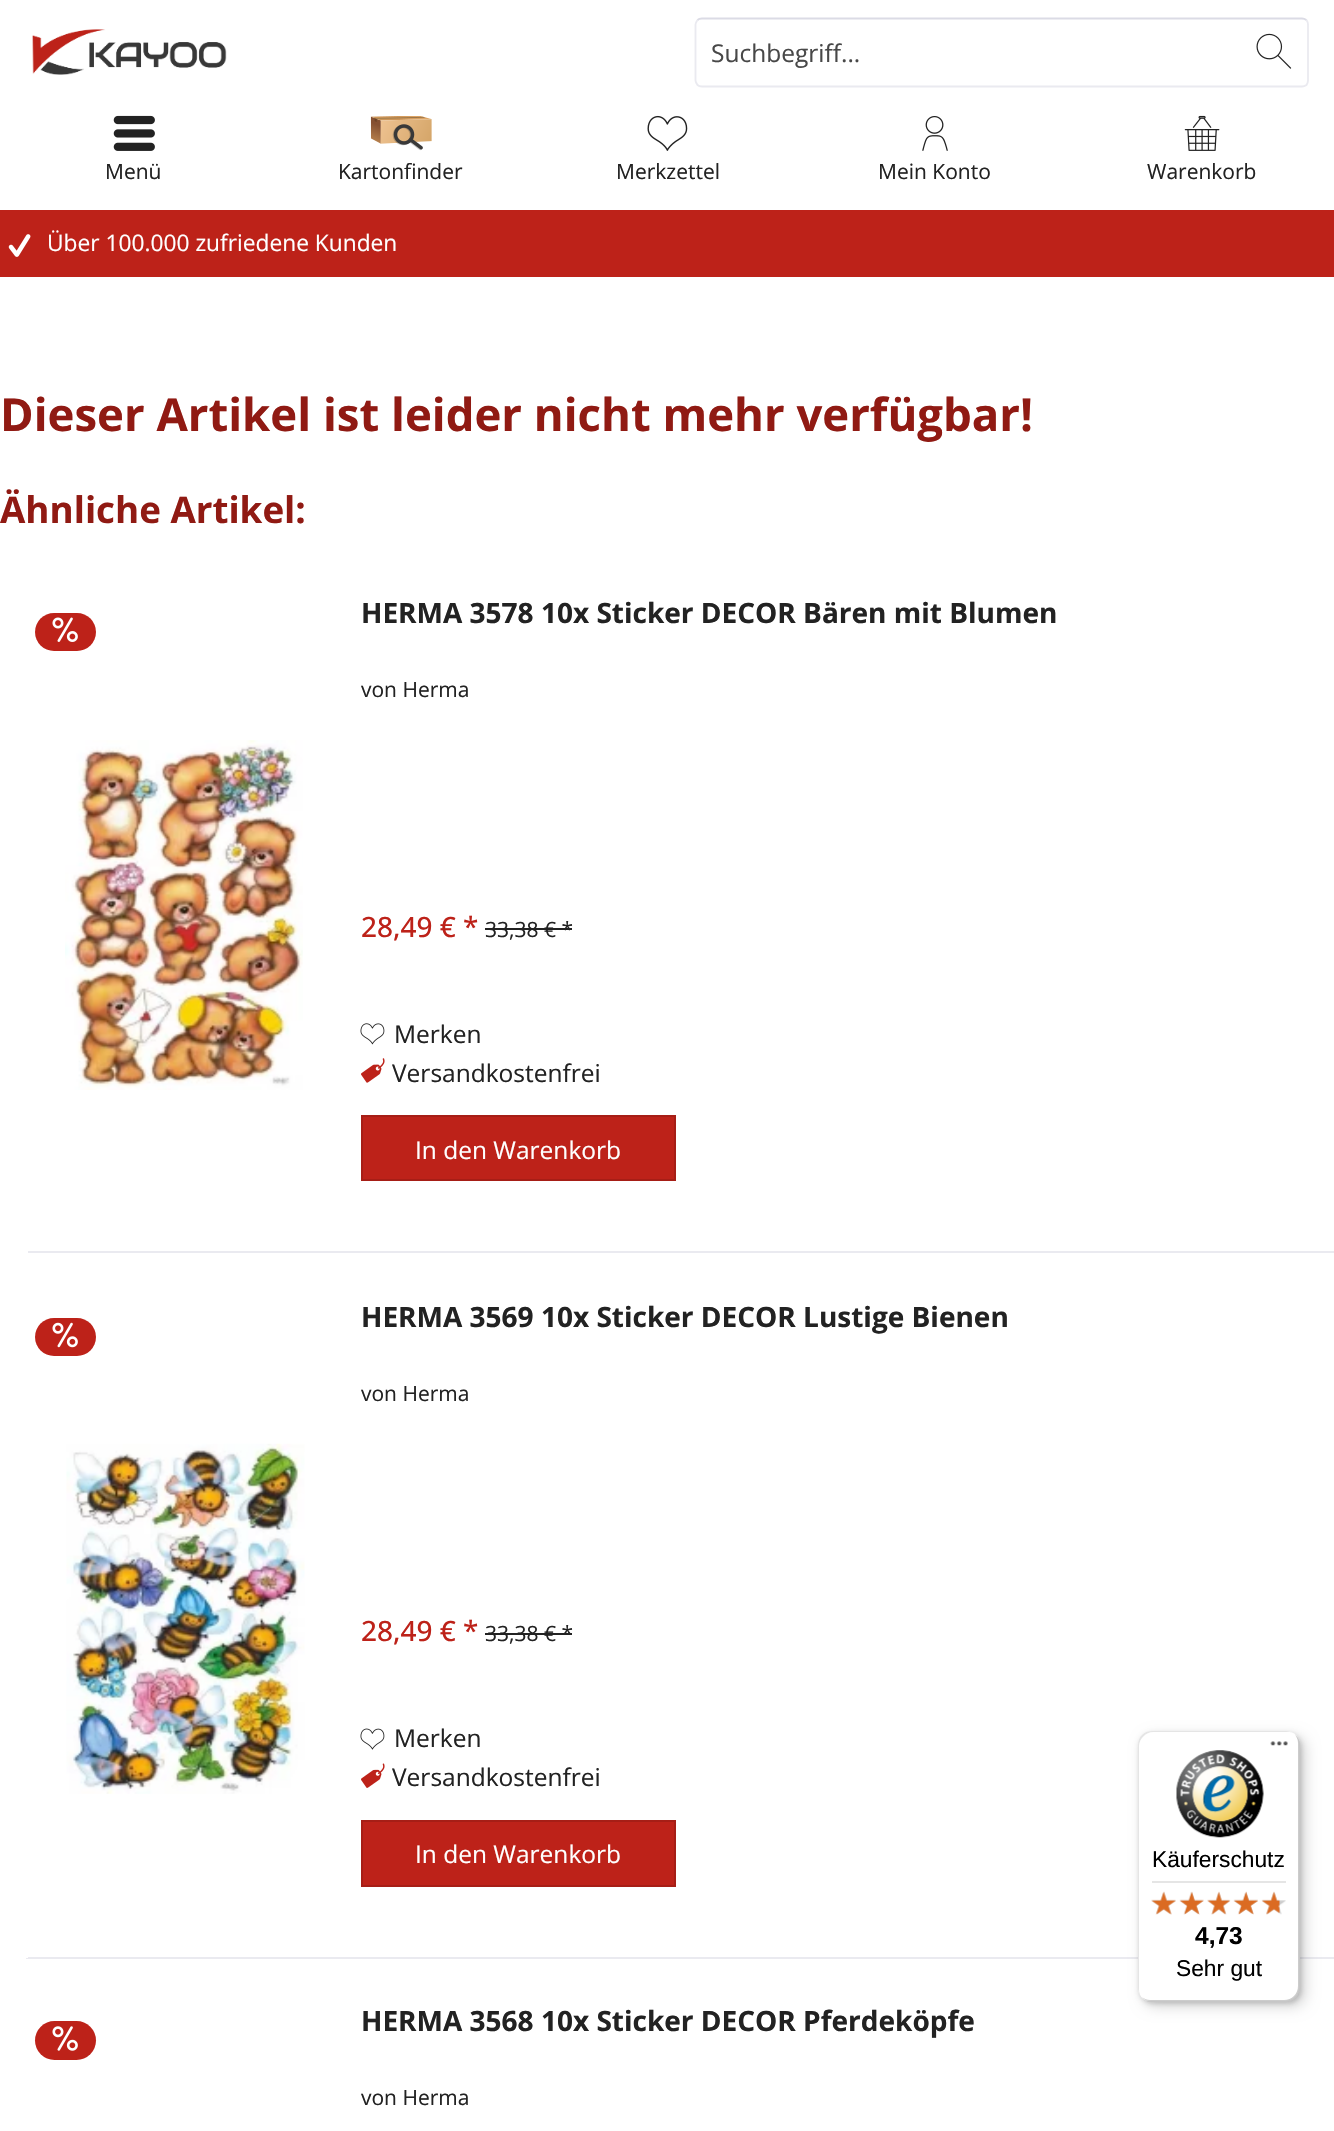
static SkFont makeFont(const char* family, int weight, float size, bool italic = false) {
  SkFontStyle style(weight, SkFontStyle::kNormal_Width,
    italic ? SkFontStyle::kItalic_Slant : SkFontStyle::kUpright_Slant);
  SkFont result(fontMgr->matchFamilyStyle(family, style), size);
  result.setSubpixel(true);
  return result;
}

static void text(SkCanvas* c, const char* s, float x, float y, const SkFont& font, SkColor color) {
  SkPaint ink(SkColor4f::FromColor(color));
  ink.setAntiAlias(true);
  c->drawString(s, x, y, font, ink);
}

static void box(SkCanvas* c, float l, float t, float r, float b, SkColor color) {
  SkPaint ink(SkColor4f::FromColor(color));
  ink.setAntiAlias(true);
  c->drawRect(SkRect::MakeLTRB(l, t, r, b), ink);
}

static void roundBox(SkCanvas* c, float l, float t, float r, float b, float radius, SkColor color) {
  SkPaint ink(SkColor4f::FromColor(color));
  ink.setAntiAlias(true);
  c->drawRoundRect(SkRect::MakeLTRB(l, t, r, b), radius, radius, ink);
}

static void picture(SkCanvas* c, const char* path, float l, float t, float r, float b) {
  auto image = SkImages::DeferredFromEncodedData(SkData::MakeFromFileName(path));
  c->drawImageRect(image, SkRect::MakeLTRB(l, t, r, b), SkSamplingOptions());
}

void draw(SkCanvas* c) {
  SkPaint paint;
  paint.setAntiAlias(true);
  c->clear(0xffffffff);
  picture(c, "img_01.png", 32, 29, 227, 75);
  paint.setStyle(SkPaint::kStroke_Style);
  paint.setStrokeWidth(1.8f);
  paint.setColor(0xffdbdbe5);
  c->drawPath(SkPathBuilder().moveTo(697.5f, 20).cubicTo(698.5f, 19, 700, 18.5f, 702, 18.5f).lineTo(1302, 18.5f).cubicTo(1303.5f, 18.5f, 1305, 19, 1306.5f, 20).detach(), paint);
  paint.setColor(0xffeaeaf0);
  c->drawPath(SkPathBuilder().moveTo(1306.5f, 20).cubicTo(1307.5f, 21.5f, 1308, 23, 1308, 24.5f).lineTo(1308, 80.5f).cubicTo(1308, 82, 1307.5f, 83.5f, 1306.5f, 85).cubicTo(1305, 86, 1303.5f, 86.5f, 1302, 86.5f).lineTo(702, 86.5f).cubicTo(700, 86.5f, 698.5f, 86, 697.5f, 85).cubicTo(696.5f, 83.5f, 695.5f, 82, 695.5f, 80.5f).lineTo(695.5f, 24.5f).cubicTo(695.5f, 23, 696.5f, 21.5f, 697.5f, 20).detach(), paint);
  SkFont face1 = makeFont("Open Sans", 400, 24.5f);
  text(c, "Suchbegriff...", 711, 62, face1, 0xff484848);
  picture(c, "img_02.png", 1256, 33, 1292, 69);
  picture(c, "img_03.png", 113, 115, 155, 151);
  SkFont face2 = makeFont("Open Sans", 400, 21);
  text(c, "Menü", 105, 179, face2, 0xff222222);
  picture(c, "img_04.png", 370, 116, 432, 151);
  text(c, "Kartonfinder", 338, 179, face2, 0xff222222);
  picture(c, "img_05.png", 647, 115, 688, 151);
  text(c, "Merkzettel", 616, 179, face2, 0xff222222);
  picture(c, "img_06.png", 922, 116, 948, 151);
  text(c, "Mein Konto", 878, 179, face2, 0xff222222);
  picture(c, "img_07.png", 1184, 115, 1220, 151);
  text(c, "Warenkorb", 1147, 179, face2, 0xff222222);
  box(c, 0, 210, 1334, 277, 0xffbd2219);
  picture(c, "img_08.png", 8, 234, 31, 257);
  SkFont face3 = makeFont("Open Sans", 400, 22.75f);
  text(c, "Über 100.000 zufriedene Kunden", 47, 251, face3, 0xffffffff);
  SkFont face4 = makeFont("Open Sans", 700, 45.5f);
  text(c, "Dieser Artikel ist leider nicht mehr verfügbar!", 0, 431, face4, 0xff901a13);
  SkFont face5 = makeFont("Open Sans", 700, 36.75f);
  text(c, "Ähnliche Artikel:", 0, 523, face5, 0xff901a13);
  box(c, 26, 1251, 1334, 1253, 0xffeaeaf0);
  box(c, 26, 1251, 28, 1253, 0xffffffff);
  roundBox(c, 35, 613, 96, 651, 19, 0xffbd2219);
  picture(c, "img_09.png", 52, 617, 78, 642);
  picture(c, "img_10.png", 65, 740, 303, 1090);
  SkFont face6 = makeFont("Open Sans", 700, 28);
  text(c, "HERMA 3578 10x Sticker DECOR Bären mit Blumen", 361, 623, face6, 0xff222222);
  text(c, "von Herma", 361, 697, face2, 0xff222222);
  SkFont face7 = makeFont("Open Sans", 500, 28);
  text(c, "28,49 € *", 361, 937, face7, 0xffbd2219);
  text(c, "33,38 € *", 485, 937, face2, 0xff222222);
  box(c, 485, 928, 572, 930, 0xff222222);
  picture(c, "img_11.png", 360, 1023, 385, 1045);
  text(c, "Merken", 394, 1043, face1, 0xff222222);
  picture(c, "img_12.png", 361, 1058, 385, 1083);
  text(c, "Versandkostenfrei", 392, 1082, face1, 0xff222222);
  paint.setStyle(SkPaint::kFill_Style);
  paint.setColor(0xffbd2219);
  c->drawRect(SkRect::MakeLTRB(362, 1116, 675, 1180), paint);
  paint.setStyle(SkPaint::kStroke_Style);
  paint.setStrokeWidth(2);
  paint.setColor(0xffa61e16);
  c->drawRect(SkRect::MakeLTRB(362, 1116, 675, 1180), paint);
  text(c, "In den Warenkorb", 415, 1159, face1, 0xffffffff);
  box(c, 26, 1957, 1334, 1959, 0xffeaeaf0);
  box(c, 26, 1957, 28, 1958, 0xffffffff);
  roundBox(c, 35, 1318, 96, 1356, 19, 0xffbd2219);
  picture(c, "img_13.png", 52, 1322, 78, 1348);
  picture(c, "img_14.png", 66, 1443, 305, 1794);
  text(c, "HERMA 3569 10x Sticker DECOR Lustige Bienen", 361, 1327, face6, 0xff222222);
  text(c, "von Herma", 361, 1401, face2, 0xff222222);
  text(c, "28,49 € *", 361, 1641, face7, 0xffbd2219);
  text(c, "33,38 € *", 485, 1641, face2, 0xff222222);
  box(c, 485, 1633, 572, 1635, 0xff222222);
  picture(c, "img_15.png", 360, 1728, 385, 1750);
  text(c, "Merken", 394, 1747, face1, 0xff222222);
  picture(c, "img_16.png", 361, 1763, 385, 1788);
  text(c, "Versandkostenfrei", 392, 1786, face1, 0xff222222);
  paint.setStyle(SkPaint::kFill_Style);
  paint.setColor(0xffbd2219);
  c->drawRect(SkRect::MakeLTRB(362, 1821, 675, 1886), paint);
  paint.setStyle(SkPaint::kStroke_Style);
  paint.setColor(0xffa61e16);
  c->drawRect(SkRect::MakeLTRB(362, 1821, 675, 1886), paint);
  text(c, "In den Warenkorb", 415, 1863, face1, 0xffffffff);
  roundBox(c, 35, 2021, 96, 2060, 19.5f, 0xffbd2219);
  picture(c, "img_17.png", 52, 2026, 78, 2051);
  text(c, "HERMA 3568 10x Sticker DECOR Pferdeköpfe", 361, 2031, face6, 0xff222222);
  text(c, "von Herma", 361, 2105, face2, 0xff222222);
  paint.setStyle(SkPaint::kFill_Style);
  paint.setColor(0x26000000);
  paint.setMaskFilter(SkMaskFilter::MakeBlur(kNormal_SkBlurStyle, 7));
  c->drawRoundRect(SkRect::MakeLTRB(1143, 1736, 1306, 2007), 14, 14, paint);
  paint.setMaskFilter(nullptr);
  paint.setMaskFilter(SkMaskFilter::MakeBlur(kNormal_SkBlurStyle, 2));
  c->drawRoundRect(SkRect::MakeLTRB(1139, 1733, 1302, 2004), 14, 14, paint);
  paint.setMaskFilter(nullptr);
  roundBox(c, 1138, 1731, 1300, 2002, 14, 0xffffffff);
  paint.setColor(0xffe5e5e5);
  c->drawPath(SkPathBuilder().moveTo(1153, 1732).lineTo(1288, 1732).cubicTo(1290, 1732, 1292, 1732, 1293, 1733).cubicTo(1291, 1732, 1289, 1731, 1286, 1731).lineTo(1152, 1731).cubicTo(1144, 1731, 1138, 1737, 1138, 1745).lineTo(1138, 1988).cubicTo(1138, 1991, 1139, 1994, 1141, 1997).cubicTo(1140, 1995, 1139, 1992, 1139, 1990).lineTo(1139, 1746).cubicTo(1139, 1739, 1146, 1732, 1153, 1732).close().detach(), paint);
  paint.setColor(0x33000000);
  c->drawPath(SkPathBuilder().moveTo(1142, 1997).cubicTo(1144, 2000, 1148, 2002, 1152, 2002).lineTo(1286, 2002).cubicTo(1294, 2002, 1300, 1996, 1300, 1988).lineTo(1300, 1745).cubicTo(1300, 1741, 1298, 1737, 1295, 1735).cubicTo(1297, 1737, 1298, 1740, 1298, 1743).lineTo(1298, 1986).cubicTo(1298, 1994, 1292, 2000, 1284, 2000).lineTo(1150, 2000).cubicTo(1147, 2000, 1144, 1999, 1142, 1997).close().detach(), paint);
  paint.setColor(0x33323232);
  c->drawPath(SkPathBuilder().moveTo(1144, 2000).cubicTo(1146, 2001, 1149, 2002, 1152, 2002).lineTo(1286, 2002).cubicTo(1294, 2002, 1300, 1996, 1300, 1988).lineTo(1300, 1745).cubicTo(1300, 1741, 1299, 1738, 1296, 1736).cubicTo(1298, 1738, 1299, 1741, 1299, 1744).lineTo(1299, 1987).cubicTo(1299, 1995, 1293, 2001, 1285, 2001).lineTo(1150, 2001).cubicTo(1148, 2001, 1146, 2001, 1144, 2000).close().detach(), paint);
  paint.setColor(0x4dffffff);
  c->drawPath(SkPathBuilder().moveTo(1143, 1998).cubicTo(1145, 2001, 1148, 2002, 1152, 2002).lineTo(1286, 2002).cubicTo(1294, 2002, 1300, 1996, 1300, 1988).lineTo(1300, 1745).cubicTo(1300, 1741, 1299, 1738, 1296, 1736).cubicTo(1298, 1738, 1299, 1741, 1299, 1744).lineTo(1299, 1987).cubicTo(1299, 1995, 1293, 2001, 1285, 2001).lineTo(1151, 2001).cubicTo(1148, 2001, 1145, 2000, 1143, 1998).close().detach(), paint);
  picture(c, "img_18.png", 1270, 1741, 1288, 1746);
  picture(c, "img_19.png", 1176, 1750, 1264, 1838);
  SkFont face8 = makeFont("Liberation Sans", 400, 22.75f);
  text(c, "Käuferschutz", 1152, 1867, face8, 0xff000000);
  box(c, 1152, 1881, 1286, 1883, 0xffe5e5e5);
  picture(c, "img_25.png", 1151, 1892, 1176, 1915);
  picture(c, "img_20.png", 1151, 1891, 1176, 1915);
  picture(c, "img_26.png", 1180, 1892, 1204, 1915);
  picture(c, "img_21.png", 1179, 1891, 1204, 1915);
  picture(c, "img_27.png", 1207, 1892, 1230, 1915);
  picture(c, "img_22.png", 1207, 1891, 1231, 1915);
  picture(c, "img_28.png", 1234, 1892, 1258, 1914);
  picture(c, "img_23.png", 1233, 1891, 1258, 1915);
  picture(c, "img_29.png", 1262, 1892, 1286, 1915);
  picture(c, "img_24.png", 1261, 1891, 1280, 1915);
  SkFont face9 = makeFont("Liberation Sans", 700, 24.5f);
  text(c, "4,73", 1195, 1944, face9, 0xff000000);
  text(c, "Sehr gut", 1176, 1976, face8, 0xff000000);
}
